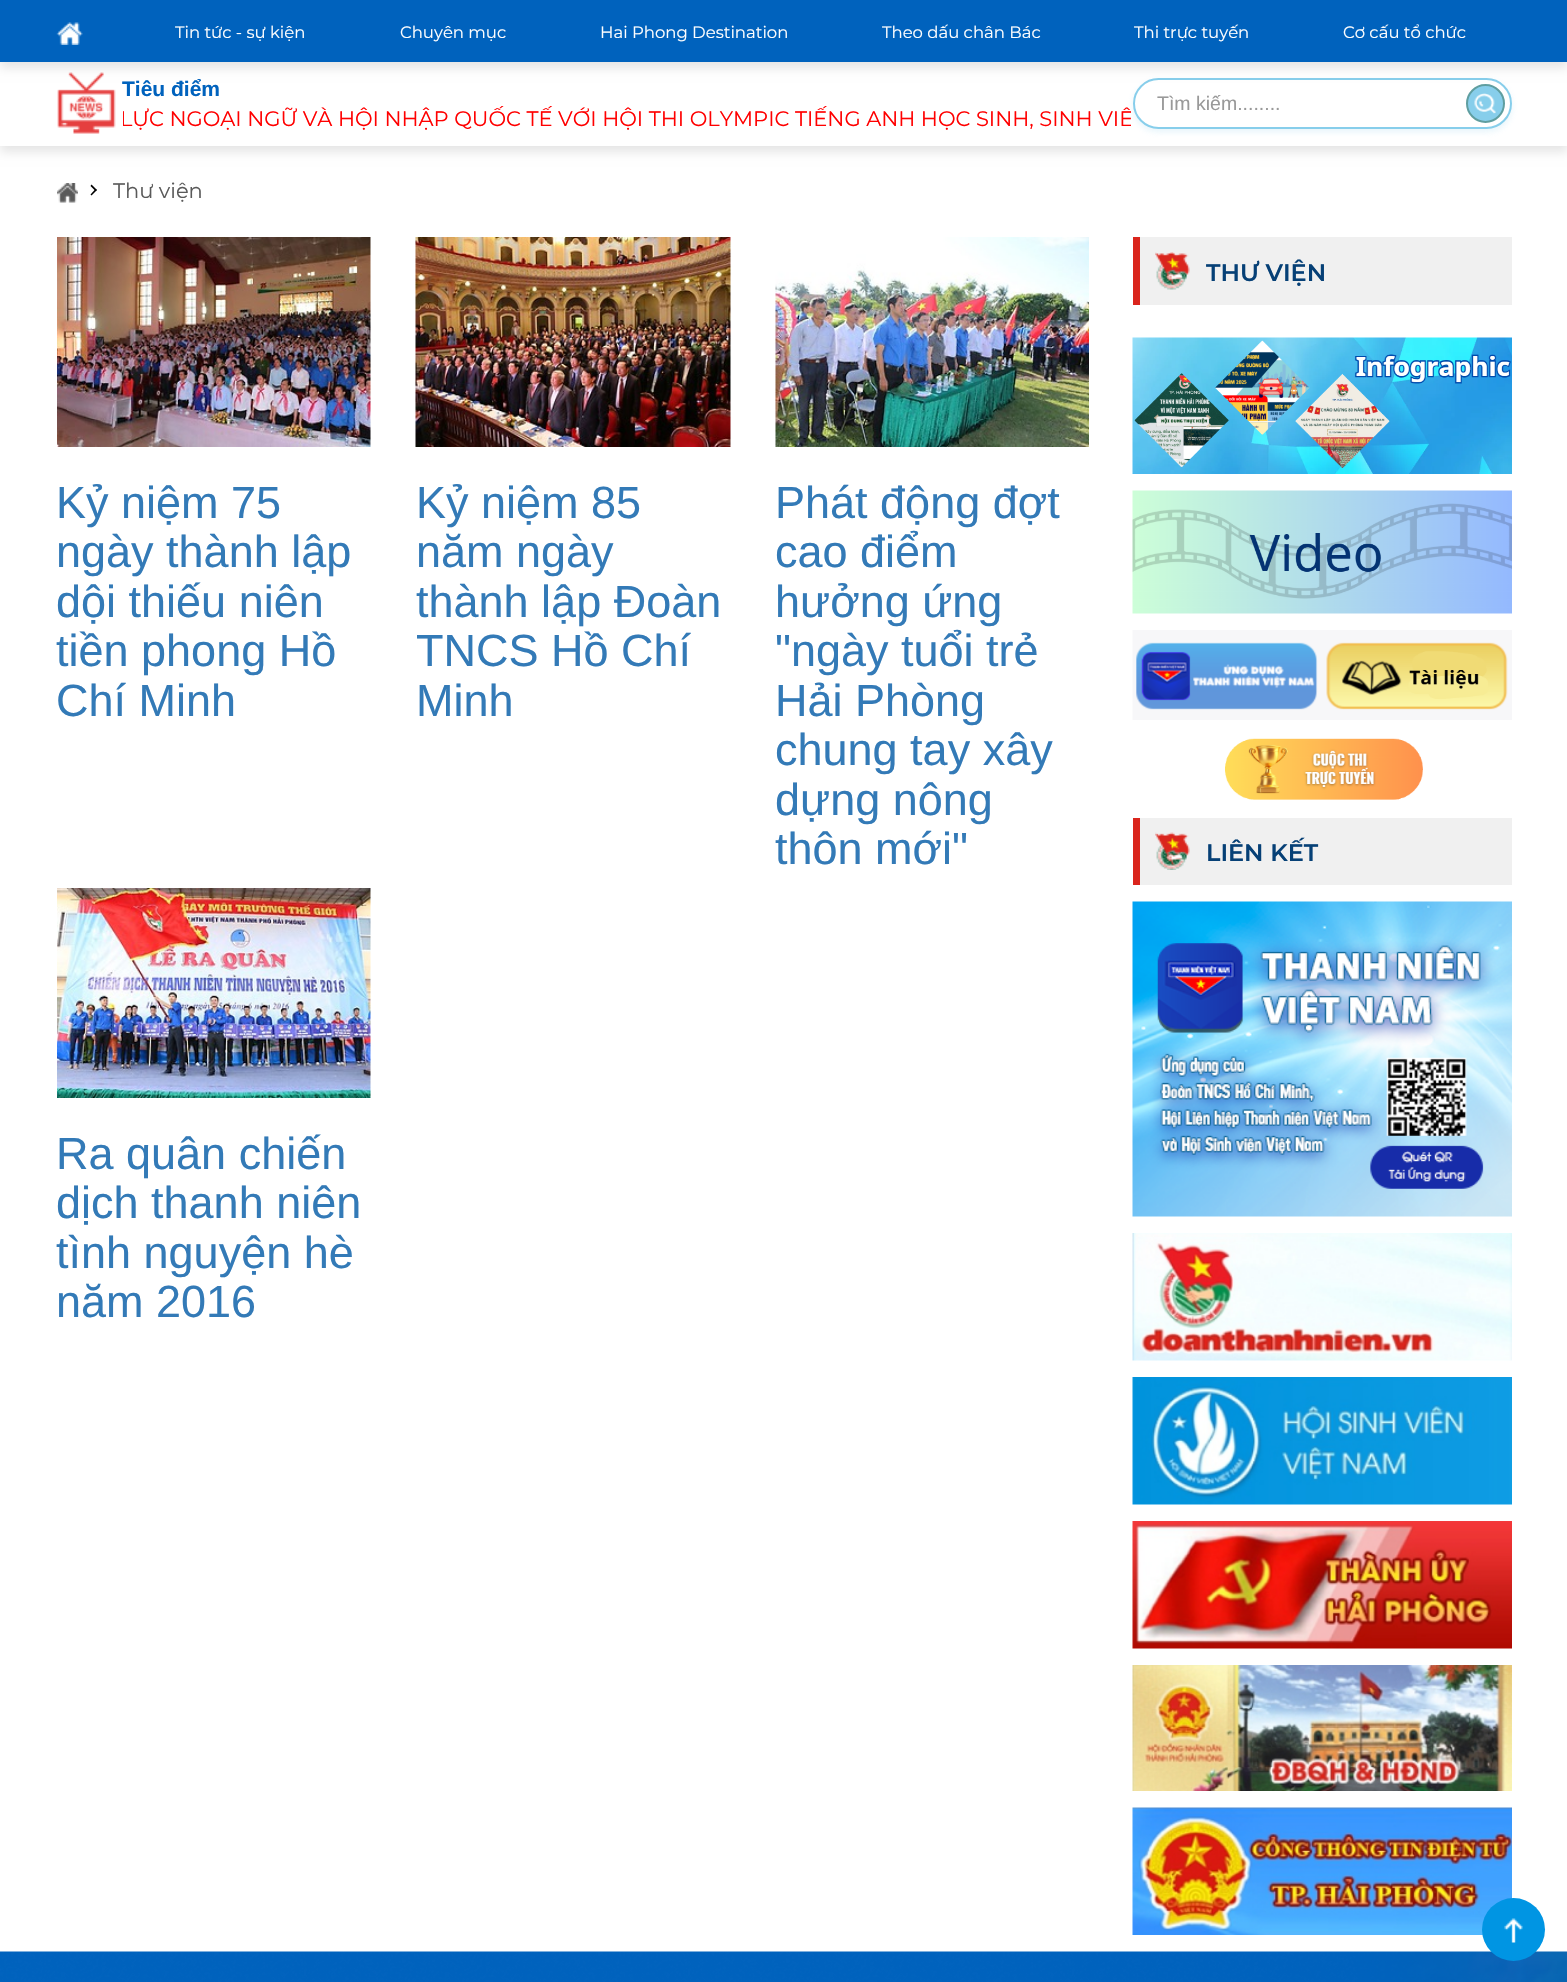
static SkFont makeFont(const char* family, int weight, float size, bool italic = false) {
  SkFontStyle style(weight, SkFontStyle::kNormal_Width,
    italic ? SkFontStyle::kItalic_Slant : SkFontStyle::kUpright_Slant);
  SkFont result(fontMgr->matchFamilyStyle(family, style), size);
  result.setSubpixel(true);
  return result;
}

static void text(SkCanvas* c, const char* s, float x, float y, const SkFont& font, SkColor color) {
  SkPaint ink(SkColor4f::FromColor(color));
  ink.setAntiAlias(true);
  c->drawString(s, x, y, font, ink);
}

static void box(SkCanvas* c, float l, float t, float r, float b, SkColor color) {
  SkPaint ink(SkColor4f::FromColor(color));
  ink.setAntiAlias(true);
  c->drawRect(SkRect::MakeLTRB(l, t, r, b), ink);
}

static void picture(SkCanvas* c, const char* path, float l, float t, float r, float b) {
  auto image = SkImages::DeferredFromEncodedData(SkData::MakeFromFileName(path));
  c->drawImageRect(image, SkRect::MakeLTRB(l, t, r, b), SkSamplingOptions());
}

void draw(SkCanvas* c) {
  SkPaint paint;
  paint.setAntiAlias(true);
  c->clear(0xffffffff);
  paint.setColor(0x1a000000);
  paint.setMaskFilter(SkMaskFilter::MakeBlur(kNormal_SkBlurStyle, 5));
  c->drawRect(SkRect::MakeLTRB(0, 66, 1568, 152), paint);
  paint.setMaskFilter(nullptr);
  box(c, 0, 62, 1567, 146, 0xffffffff);
  picture(c, "img_02.png", 57, 72, 116, 134);
  paint.setColor(0x3387ceeb);
  paint.setMaskFilter(SkMaskFilter::MakeBlur(kNormal_SkBlurStyle, 3));
  c->drawRoundRect(SkRect::MakeLTRB(1133, 81, 1512, 132), 25.5f, 25.5f, paint);
  paint.setMaskFilter(nullptr);
  paint.setColor(0xffffffff);
  c->drawRoundRect(SkRect::MakeLTRB(1134, 79, 1511, 128), 24.5f, 24.5f, paint);
  paint.setStyle(SkPaint::kStroke_Style);
  paint.setStrokeWidth(2);
  paint.setColor(0xff87ceeb);
  c->drawRoundRect(SkRect::MakeLTRB(1134, 79, 1511, 128), 24.5f, 24.5f, paint);
  paint.setStyle(SkPaint::kFill_Style);
  paint.setColor(0x1a000000);
  paint.setMaskFilter(SkMaskFilter::MakeBlur(kNormal_SkBlurStyle, 5));
  c->drawRect(SkRect::MakeLTRB(0, 6, 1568, 68), paint);
  paint.setMaskFilter(nullptr);
  box(c, 0, 0, 1567, 62, 0xff0062bd);
  picture(c, "img_01.png", 56, 22, 83, 45);
  SkFont face1 = makeFont("Montserrat", 400, 16.5f);
  text(c, "Tin tức - sự kiện", 175, 38, face1, 0xfffefeff);
  text(c, "Chuyên mục", 400, 38, face1, 0xfffefeff);
  text(c, "Hai Phong Destination", 600, 38, face1, 0xfffefeff);
  text(c, "Theo dấu chân Bác", 882, 38, face1, 0xfffefeff);
  text(c, "Thi trực tuyến", 1134, 38, face1, 0xfffefeff);
  text(c, "Cơ cấu tổ chức", 1343, 38, face1, 0xfffefeff);
  SkFont face2 = makeFont("Liberation Sans", 700, 21);
  text(c, "Tiêu điểm", 122, 96, face2, 0xff0062bd);
  c->save();
  c->clipRect(SkRect::MakeLTRB(123, 104, 1131, 134));
  SkFont face3 = makeFont("Montserrat", 400, 21);
  text(c, "LỰC NGOẠI NGỮ VÀ HỘI NHẬP QUỐC TẾ VỚI HỘI THI OLYMPIC TIẾNG ANH HỌC SINH, SINH VIÊ", 120, 126, face3, 0xffff0000);
  c->restore();
  SkFont face4 = makeFont("Liberation Sans", 400, 19.5f);
  text(c, "Tìm kiếm........", 1157, 110, face4, 0xff999999);
  paint.setColor(0xff87ceeb);
  c->drawCircle(1485.5f, 103.5f, 18.5f, paint);
  paint.setStyle(SkPaint::kStroke_Style);
  paint.setColor(0xff5f9ea0);
  c->drawCircle(1485.5f, 103.5f, 18.5f, paint);
  picture(c, "img_03.png", 1474, 93, 1496, 114);
  picture(c, "img_04.png", 57, 183, 78, 203);
  paint.setStyle(SkPaint::kFill_Style);
  paint.setColor(0xff000000);
  c->drawPath(SkPathBuilder().moveTo(91.5f, 184.5f).lineTo(97, 190).lineTo(95.5f, 191).lineTo(90.5f, 186).close().detach(), paint);
  c->drawPath(SkPathBuilder().moveTo(95.5f, 189).lineTo(97, 190).lineTo(91.5f, 195.5f).lineTo(90.5f, 194.5f).close().detach(), paint);
  text(c, "Thư viện", 113, 198, face3, 0xff5a5a5a);
  picture(c, "img_05.png", 57, 237, 371, 447);
  SkFont face5 = makeFont("Liberation Sans", 400, 45);
  text(c, "Kỷ niệm 75", 56, 518, face5, 0xff337ab7);
  text(c, "ngày thành lập", 56, 567, face5, 0xff337ab7);
  text(c, "dội thiếu niên", 56, 617, face5, 0xff337ab7);
  text(c, "tiền phong Hồ", 56, 666, face5, 0xff337ab7);
  text(c, "Chí Minh", 56, 716, face5, 0xff337ab7);
  picture(c, "img_06.png", 415, 237, 731, 447);
  text(c, "Kỷ niệm 85", 416, 518, face5, 0xff337ab7);
  text(c, "năm ngày", 416, 567, face5, 0xff337ab7);
  text(c, "thành lập Đoàn", 416, 617, face5, 0xff337ab7);
  text(c, "TNCS Hồ Chí", 416, 666, face5, 0xff337ab7);
  text(c, "Minh", 416, 716, face5, 0xff337ab7);
  picture(c, "img_07.png", 775, 237, 1089, 447);
  text(c, "Phát động đợt", 775, 518, face5, 0xff337ab7);
  text(c, "cao điểm", 775, 567, face5, 0xff337ab7);
  text(c, "hưởng ứng", 775, 617, face5, 0xff337ab7);
  text(c, "\"ngày tuổi trẻ", 775, 666, face5, 0xff337ab7);
  text(c, "Hải Phòng", 775, 716, face5, 0xff337ab7);
  text(c, "chung tay xây", 775, 765, face5, 0xff337ab7);
  text(c, "dựng nông", 775, 815, face5, 0xff337ab7);
  text(c, "thôn mới\"", 775, 864, face5, 0xff337ab7);
  picture(c, "img_08.png", 57, 888, 371, 1098);
  text(c, "Ra quân chiến", 56, 1169, face5, 0xff337ab7);
  text(c, "dịch thanh niên", 56, 1218, face5, 0xff337ab7);
  text(c, "tình nguyện hè", 56, 1268, face5, 0xff337ab7);
  text(c, "năm 2016", 56, 1317, face5, 0xff337ab7);
  box(c, 1140, 237, 1512, 305, 0xfff0f0f0);
  box(c, 1133, 237, 1140, 305, 0xffda251d);
  picture(c, "img_09.png", 1155, 252, 1190, 290);
  SkFont face6 = makeFont("Montserrat", 600, 24);
  text(c, "THƯ VIỆN", 1206, 281, face6, 0xff064076);
  picture(c, "img_10.png", 1132, 337, 1512, 474);
  picture(c, "img_11.png", 1132, 490, 1512, 614);
  picture(c, "img_12.png", 1132, 630, 1512, 720);
  picture(c, "img_13.png", 1225, 738, 1423, 800);
  box(c, 1140, 818, 1512, 885, 0xfff0f0f0);
  box(c, 1133, 818, 1140, 885, 0xffda251d);
  picture(c, "img_14.png", 1155, 832, 1190, 870);
  text(c, "LIÊN KẾT", 1206, 861, face6, 0xff064076);
  picture(c, "img_15.png", 1132, 901, 1512, 1217);
  picture(c, "img_16.png", 1132, 1233, 1512, 1361);
  picture(c, "img_17.png", 1132, 1377, 1512, 1505);
  picture(c, "img_18.png", 1132, 1521, 1512, 1649);
  picture(c, "img_19.png", 1132, 1665, 1512, 1791);
  picture(c, "img_20.png", 1132, 1807, 1512, 1935);
  picture(c, "img_22.png", 0, 1951, 1567, 1982);
  paint.setColor(0xff0095e3);
  c->drawCircle(1513.5f, 1929.5f, 31.5f, paint);
  picture(c, "img_21.png", 1504, 1918, 1523, 1943);
}
